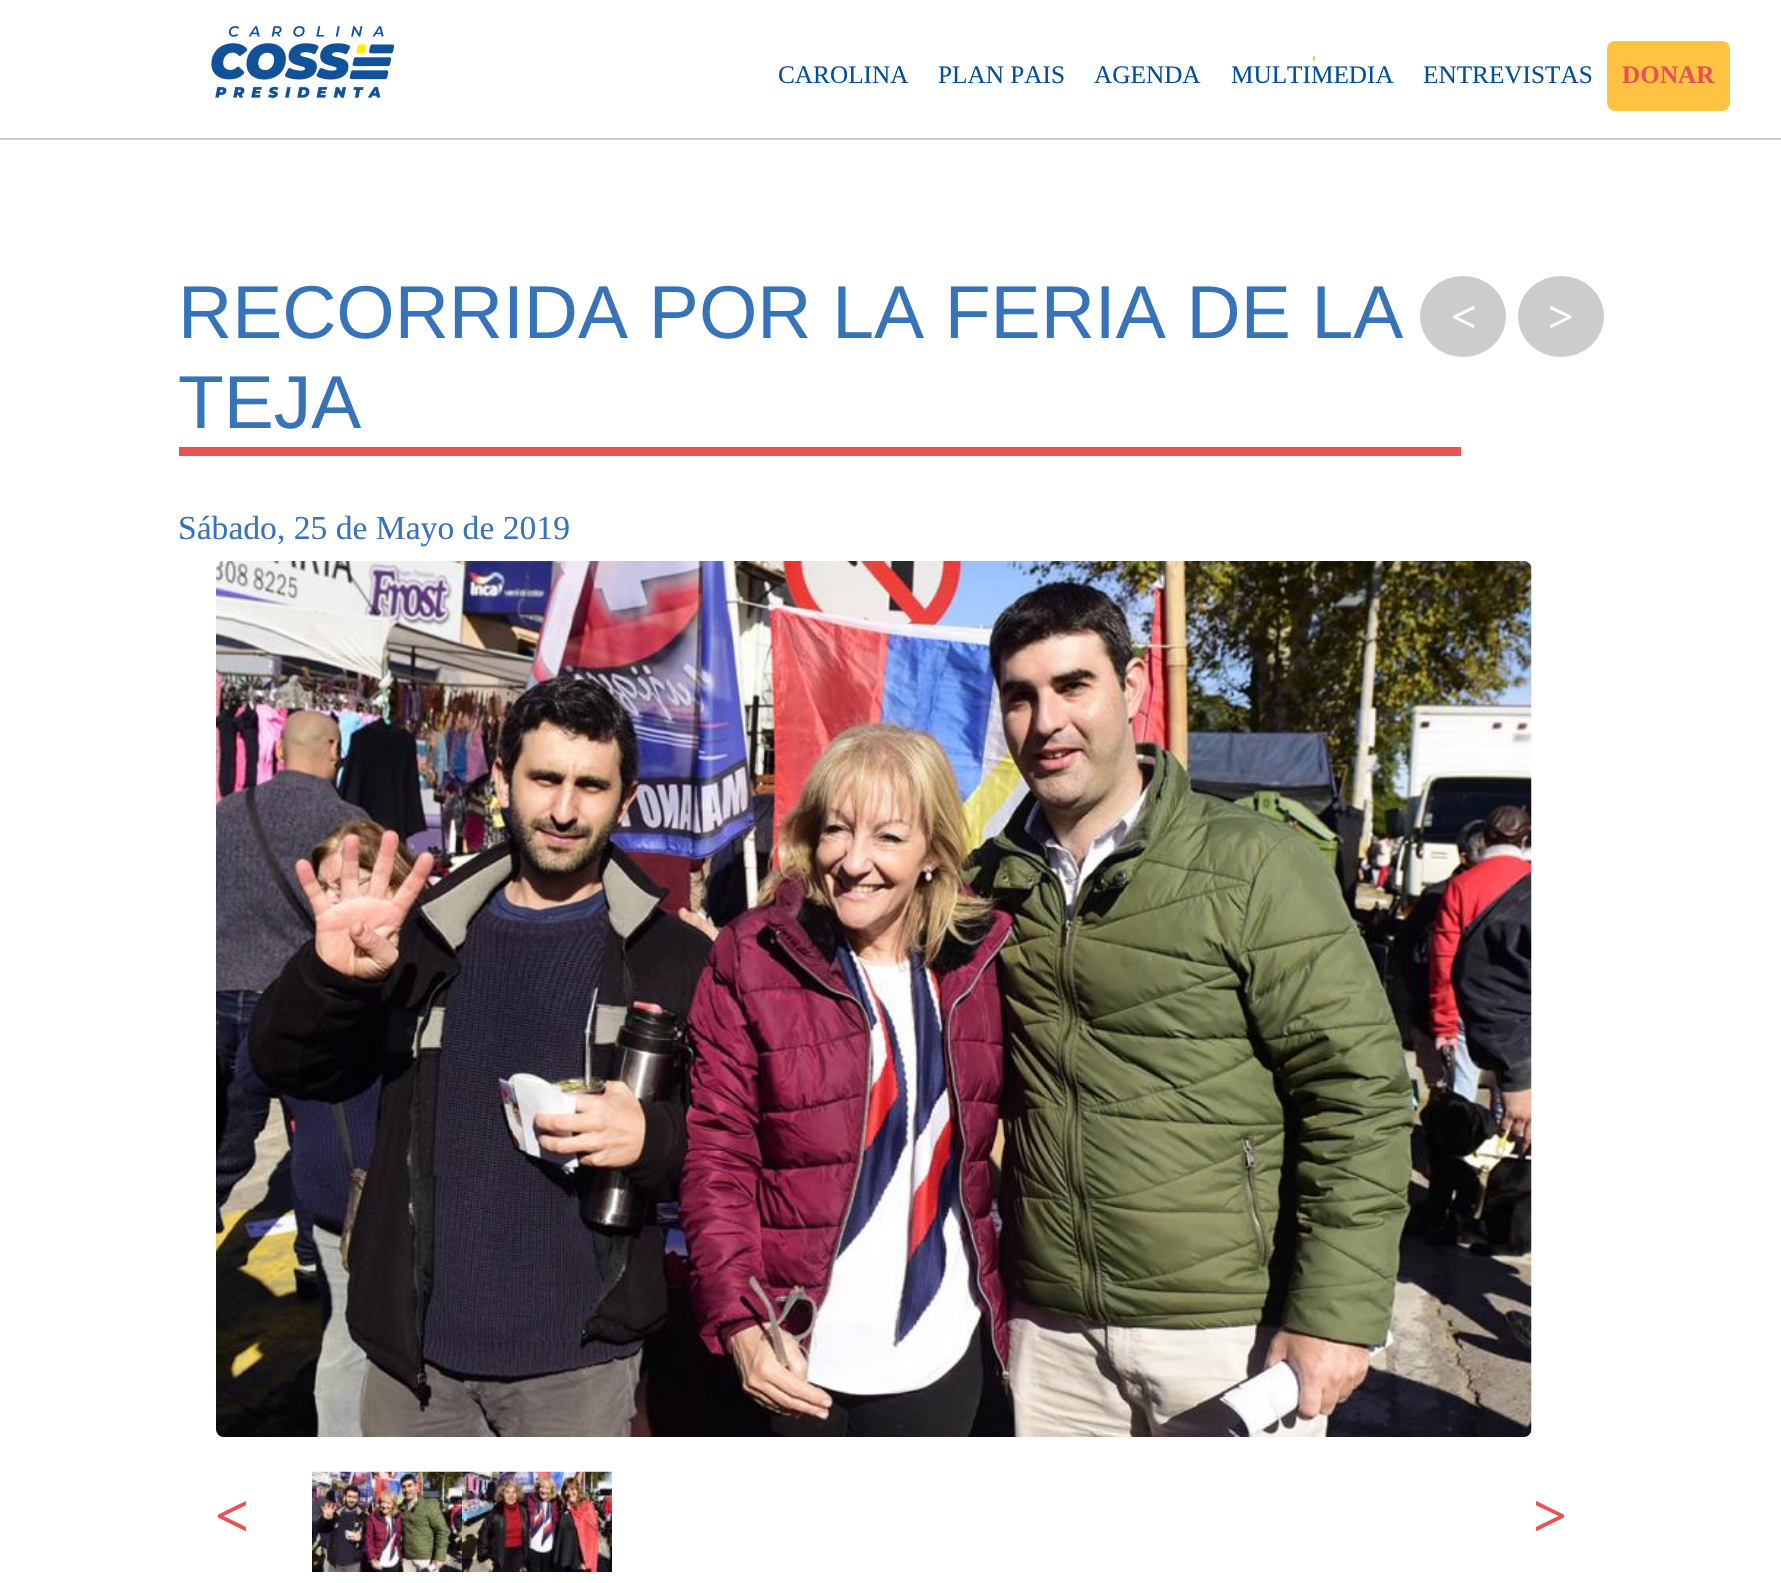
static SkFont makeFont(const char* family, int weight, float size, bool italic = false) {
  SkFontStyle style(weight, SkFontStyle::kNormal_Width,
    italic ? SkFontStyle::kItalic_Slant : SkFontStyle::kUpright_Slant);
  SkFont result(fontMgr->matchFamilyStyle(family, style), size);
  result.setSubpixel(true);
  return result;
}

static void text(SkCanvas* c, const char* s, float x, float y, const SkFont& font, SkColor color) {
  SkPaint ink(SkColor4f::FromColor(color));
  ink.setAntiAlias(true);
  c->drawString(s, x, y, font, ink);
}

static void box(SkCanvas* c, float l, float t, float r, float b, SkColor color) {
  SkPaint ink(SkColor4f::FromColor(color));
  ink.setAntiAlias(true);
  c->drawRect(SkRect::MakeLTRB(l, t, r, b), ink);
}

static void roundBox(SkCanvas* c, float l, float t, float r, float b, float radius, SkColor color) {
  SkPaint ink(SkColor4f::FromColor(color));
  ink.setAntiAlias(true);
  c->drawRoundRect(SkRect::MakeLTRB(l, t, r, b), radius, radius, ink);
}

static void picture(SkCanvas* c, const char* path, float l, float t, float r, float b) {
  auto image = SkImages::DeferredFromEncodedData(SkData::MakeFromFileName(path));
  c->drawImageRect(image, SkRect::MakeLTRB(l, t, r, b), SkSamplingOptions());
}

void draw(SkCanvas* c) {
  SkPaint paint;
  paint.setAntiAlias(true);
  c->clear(0xffffffff);
  box(c, 0, 138, 1781, 140, 0xffcccccc);
  picture(c, "img_01.png", 211, 26, 395, 98);
  SkFont face1 = makeFont("Liberation Serif", 400, 25.25f);
  text(c, "CAROLINA", 778, 83, face1, 0xff004f9a);
  text(c, "PLAN PAIS", 938, 83, face1, 0xff004f9a);
  text(c, "AGENDA", 1094, 83, face1, 0xff004f9a);
  roundBox(c, 1313, 56, 1315, 61, 1, 0xfffec340);
  text(c, "MULTIMEDIA", 1231, 83, face1, 0xff004f9a);
  text(c, "ENTREVISTAS", 1423, 83, face1, 0xff004f9a);
  roundBox(c, 1607, 41, 1730, 111, 8, 0xfffec340);
  SkFont face2 = makeFont("Liberation Serif", 700, 25.25f);
  text(c, "DONAR", 1622, 83, face2, 0xffea5154);
  box(c, 179, 447, 1461, 456, 0xffea5154);
  SkFont face3 = makeFont("Liberation Sans", 400, 75);
  text(c, "RECORRIDA POR LA FERIA DE LA", 178, 338, face3, 0xff3773b9);
  text(c, "TEJA", 178, 428, face3, 0xff3773b9);
  paint.setColor(0xffcccccc);
  c->drawOval(SkRect::MakeLTRB(1420, 276, 1506, 357), paint);
  SkFont face4 = makeFont("Liberation Serif", 700, 45);
  text(c, "<", 1451, 332, face4, 0xffffffff);
  c->drawOval(SkRect::MakeLTRB(1518, 276, 1604, 357), paint);
  text(c, ">", 1548, 332, face4, 0xffffffff);
  SkFont face5 = makeFont("Liberation Serif", 400, 33.6f);
  text(c, "Sábado, 25 de Mayo de 2019", 178, 539, face5, 0xff3773b9);
  picture(c, "img_02.png", 216, 561, 1532, 1437);
  SkFont face6 = makeFont("Liberation Serif", 700, 60);
  text(c, "<", 215, 1536, face6, 0xffea5154);
  picture(c, "img_03.png", 312, 1471, 462, 1572);
  picture(c, "img_04.png", 462, 1471, 612, 1572);
  text(c, ">", 1533, 1536, face6, 0xffea5154);
}
